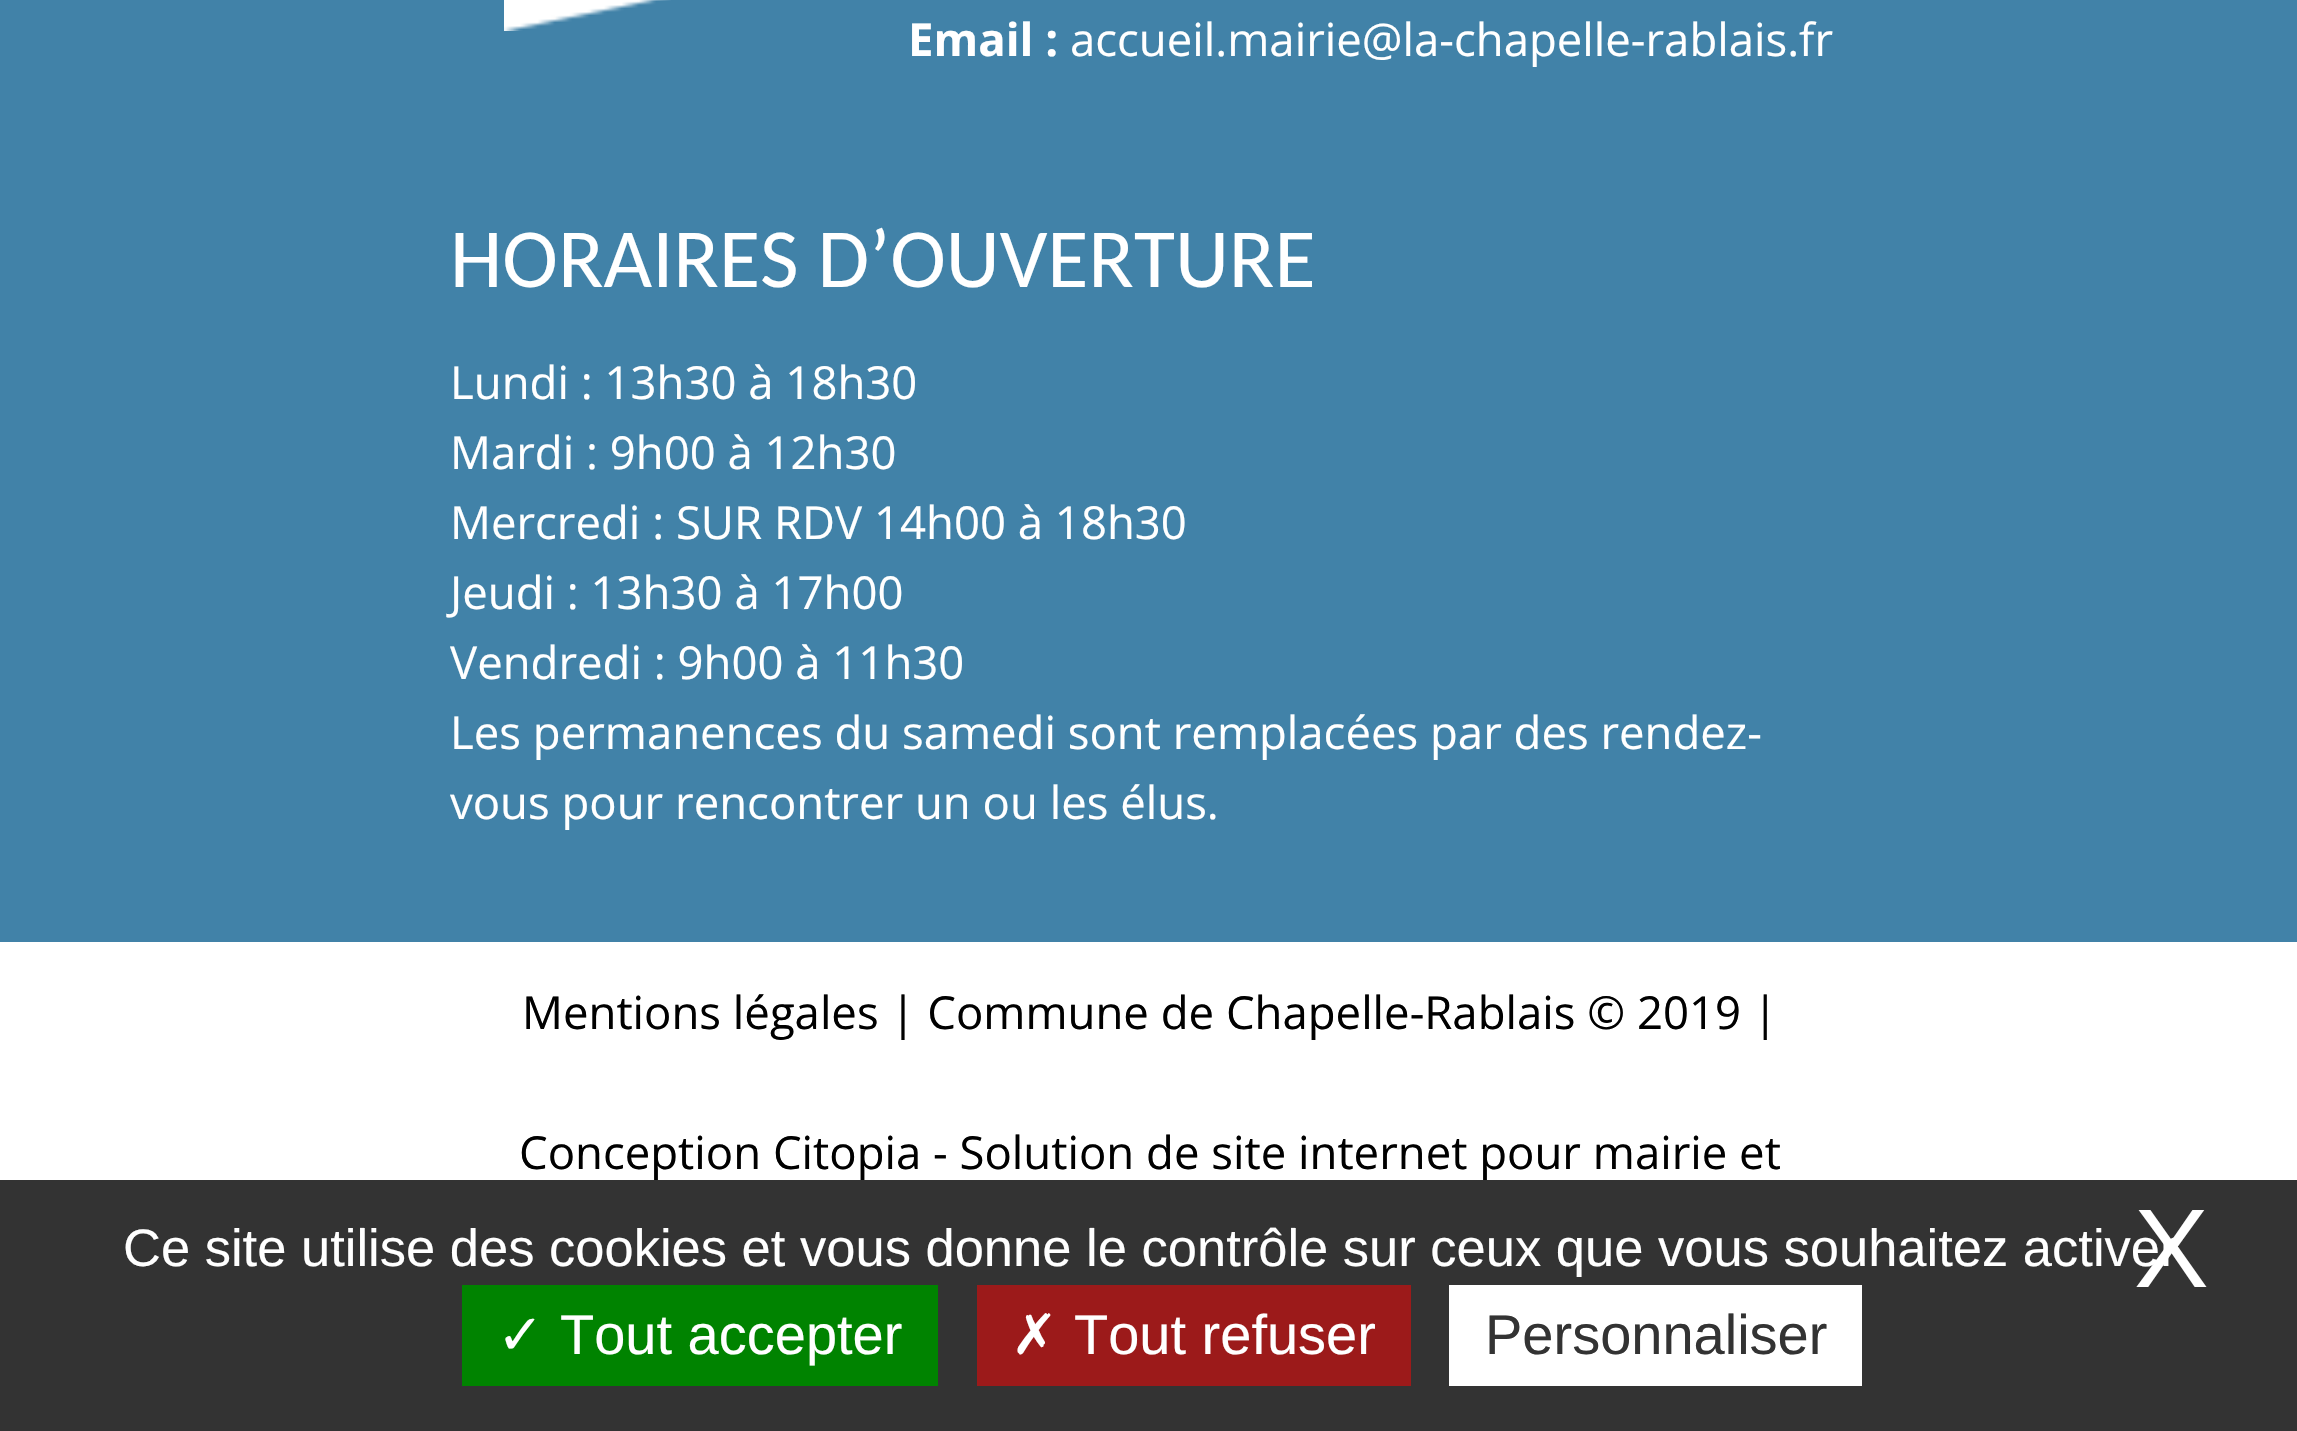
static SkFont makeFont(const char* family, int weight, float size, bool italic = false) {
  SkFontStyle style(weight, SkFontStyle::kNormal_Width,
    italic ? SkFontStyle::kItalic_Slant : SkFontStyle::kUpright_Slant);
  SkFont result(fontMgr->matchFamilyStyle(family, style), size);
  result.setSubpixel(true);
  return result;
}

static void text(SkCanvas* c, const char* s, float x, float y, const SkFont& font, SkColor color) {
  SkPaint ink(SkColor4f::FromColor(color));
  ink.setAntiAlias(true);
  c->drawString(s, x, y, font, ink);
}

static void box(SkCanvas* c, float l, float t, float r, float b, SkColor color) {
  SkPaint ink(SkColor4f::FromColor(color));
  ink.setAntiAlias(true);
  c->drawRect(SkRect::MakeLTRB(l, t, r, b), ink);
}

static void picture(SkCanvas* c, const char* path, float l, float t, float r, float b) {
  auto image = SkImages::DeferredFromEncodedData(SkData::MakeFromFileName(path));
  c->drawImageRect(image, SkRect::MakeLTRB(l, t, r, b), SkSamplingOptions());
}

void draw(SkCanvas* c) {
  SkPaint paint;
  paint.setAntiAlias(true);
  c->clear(0xffffffff);
  box(c, 0, 0, 2297, 942, 0xff4182a8);
  picture(c, "img_01.png", 504, 0, 671, 31);
  SkFont face1 = makeFont("Open Sans", 700, 45.5f);
  text(c, "Email :", 908, 56, face1, 0xffffffff);
  SkFont face2 = makeFont("Open Sans", 400, 45.5f);
  text(c, "accueil.mairie@la-chapelle-rablais.fr", 1070, 56, face2, 0xffffffff);
  SkFont face3 = makeFont("Carlito", 400, 84);
  text(c, "HORAIRES D’OUVERTURE", 450, 287, face3, 0xffffffff);
  text(c, "Lundi : 13h30 à 18h30", 450, 399, face2, 0xffffffff);
  text(c, "Mardi : 9h00 à 12h30", 450, 469, face2, 0xffffffff);
  text(c, "Mercredi : SUR RDV 14h00 à 18h30", 450, 539, face2, 0xffffffff);
  text(c, "Jeudi : 13h30 à 17h00", 450, 609, face2, 0xffffffff);
  text(c, "Vendredi : 9h00 à 11h30", 450, 679, face2, 0xffffffff);
  text(c, "Les permanences du samedi sont remplacées par des rendez-", 450, 749, face2, 0xffffffff);
  text(c, "vous pour rencontrer un ou les élus.", 450, 819, face2, 0xffffffff);
  text(c, "Mentions légales | Commune de Chapelle-Rablais © 2019 |", 522, 1029, face2, 0xff000000);
  text(c, "Conception Citopia - Solution de site internet pour mairie et", 519, 1169, face2, 0xff000000);
  box(c, 0, 1180, 2297, 1431, 0xff333333);
  SkFont face4 = makeFont("Liberation Sans", 400, 52.5f);
  text(c, "Ce site utilise des cookies et vous donne le contrôle sur ceux que vous souhaitez activer", 123, 1266, face4, 0xffffffff);
  SkFont face5 = makeFont("Liberation Sans", 400, 112);
  text(c, "X", 2134, 1287, face5, 0xffffffff);
  box(c, 462, 1285, 938, 1386, 0xff008300);
  SkFont face6 = makeFont("DejaVu Sans", 400, 56);
  text(c, "✓", 497, 1354, face6, 0xffffffff);
  SkFont face7 = makeFont("Liberation Sans", 400, 56);
  text(c, "Tout accepter", 560, 1354, face7, 0xffffffff);
  box(c, 977, 1285, 1411, 1386, 0xff9c1a1a);
  text(c, "✗", 1011, 1354, face6, 0xffffffff);
  text(c, "Tout refuser", 1074, 1354, face7, 0xffffffff);
  box(c, 1449, 1285, 1862, 1386, 0xffffffff);
  text(c, "Personnaliser", 1485, 1354, face7, 0xff333333);
}
